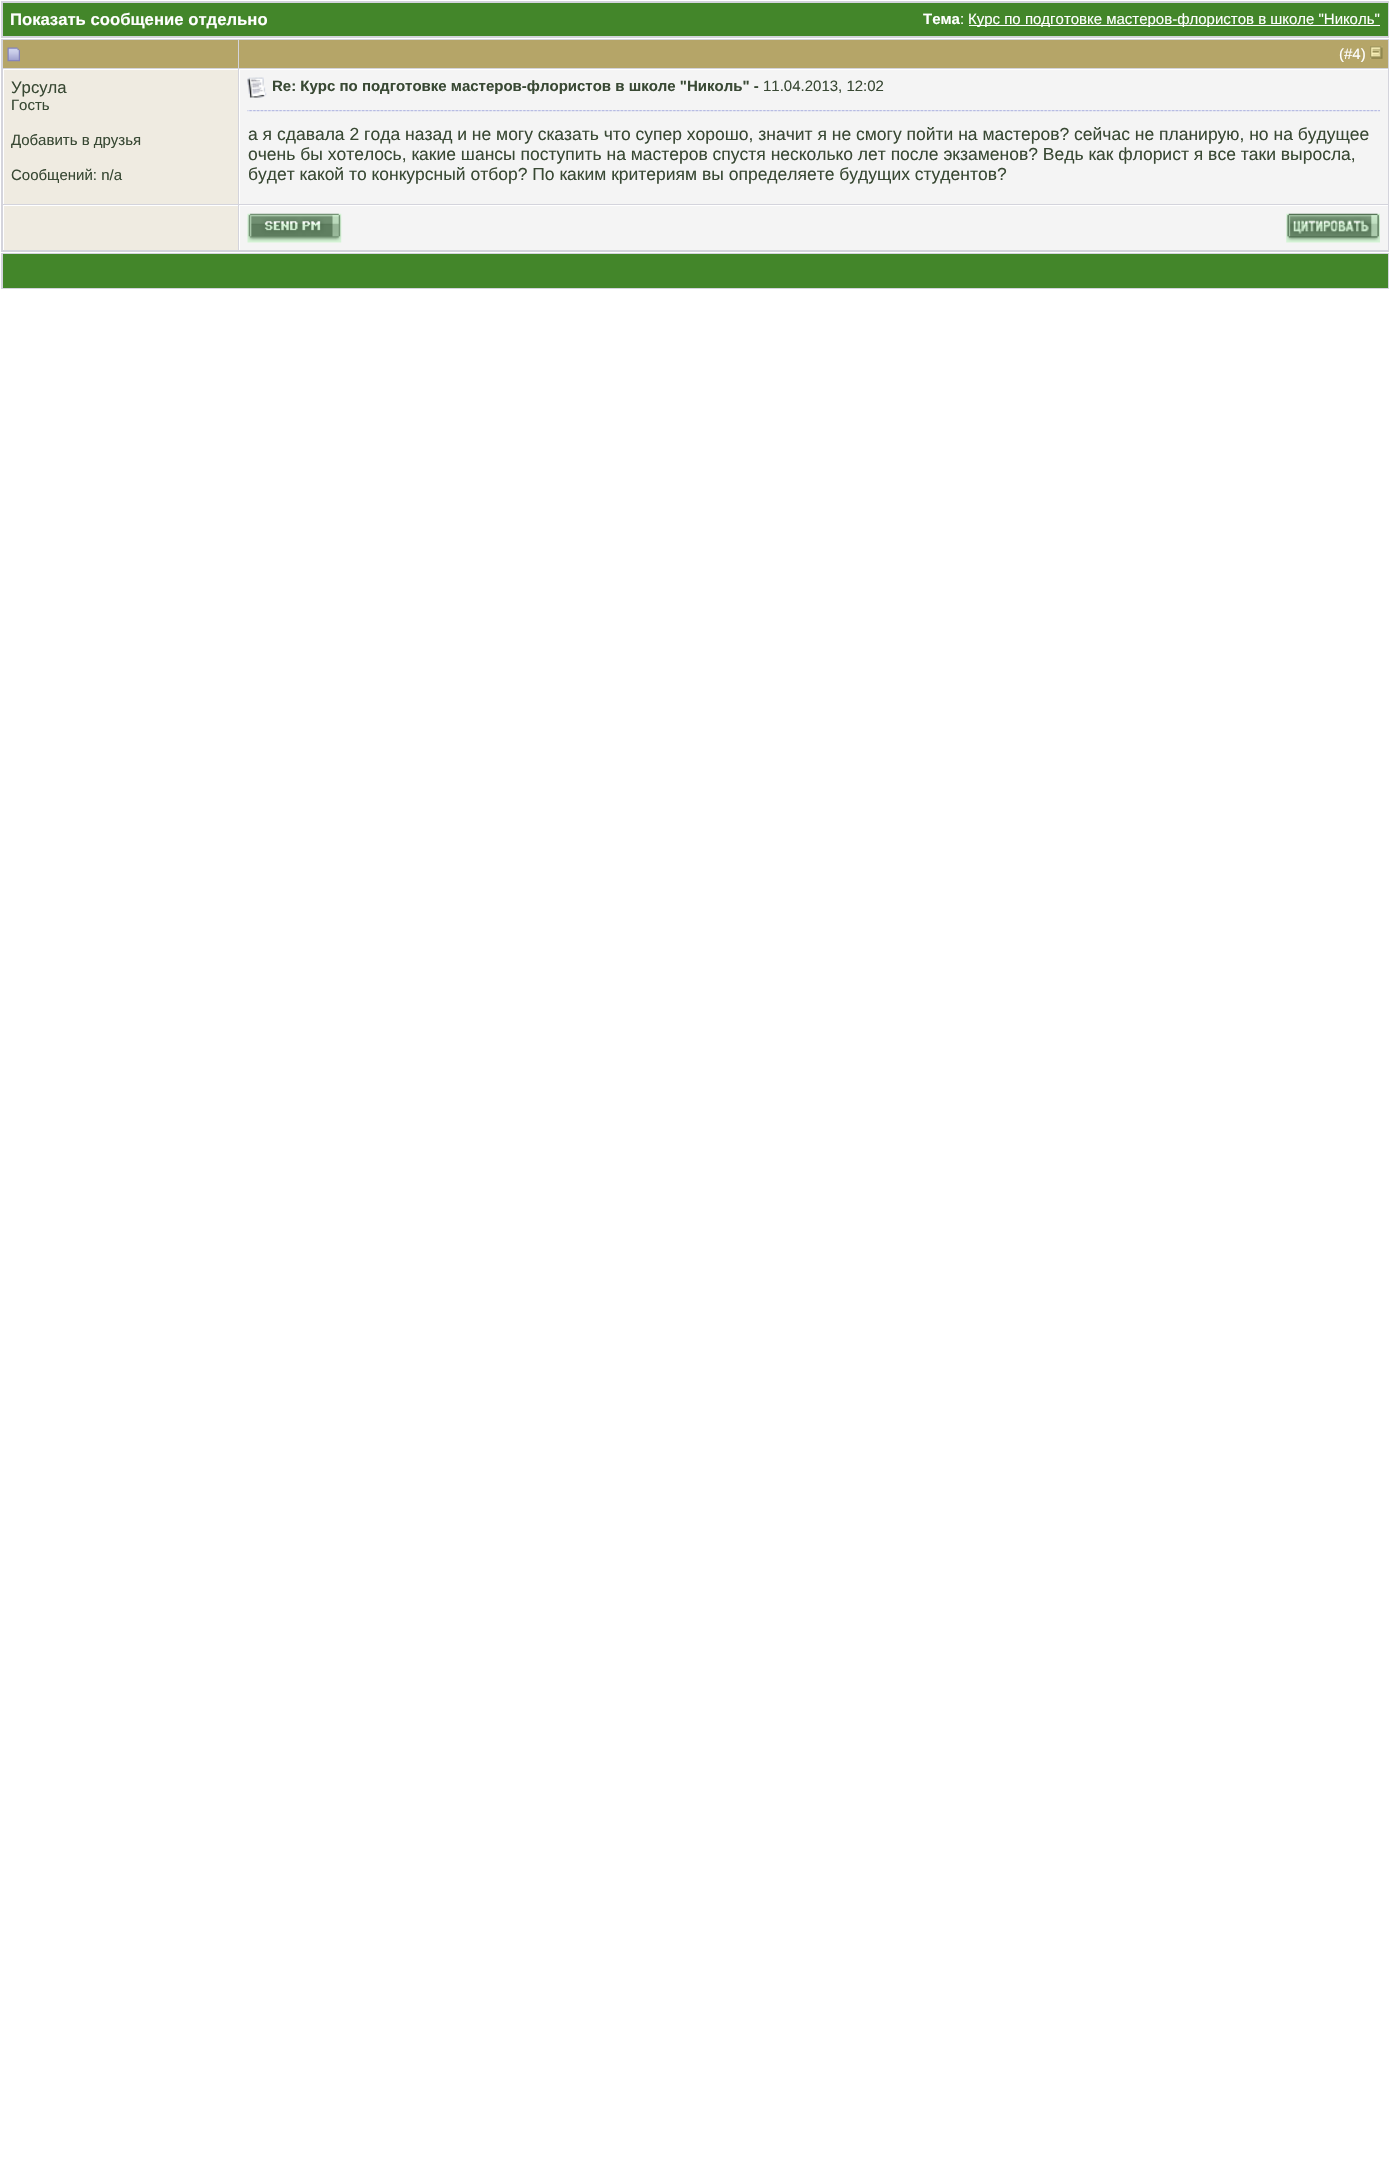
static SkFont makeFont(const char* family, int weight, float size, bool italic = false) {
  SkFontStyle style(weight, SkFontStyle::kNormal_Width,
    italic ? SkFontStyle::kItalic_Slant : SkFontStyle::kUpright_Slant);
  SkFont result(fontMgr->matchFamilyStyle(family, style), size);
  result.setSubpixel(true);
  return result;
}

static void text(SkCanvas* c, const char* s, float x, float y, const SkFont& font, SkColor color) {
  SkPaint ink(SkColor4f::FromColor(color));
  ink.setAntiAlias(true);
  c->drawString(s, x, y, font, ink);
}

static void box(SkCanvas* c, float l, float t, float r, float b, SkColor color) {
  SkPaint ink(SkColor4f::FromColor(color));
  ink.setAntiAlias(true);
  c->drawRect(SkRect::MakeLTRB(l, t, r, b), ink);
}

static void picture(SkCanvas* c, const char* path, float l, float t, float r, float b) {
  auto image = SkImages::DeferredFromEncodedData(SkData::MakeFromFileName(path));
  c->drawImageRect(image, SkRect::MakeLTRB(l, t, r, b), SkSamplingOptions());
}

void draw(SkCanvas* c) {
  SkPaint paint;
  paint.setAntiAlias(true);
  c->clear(0xffffffff);
  box(c, 1, 1, 1389, 38, 0xffd4d4dc);
  box(c, 3, 3, 1388, 36, 0xff43862a);
  SkFont face1 = makeFont("Liberation Sans", 700, 16.7f);
  text(c, "Показать сообщение отдельно", 10, 25, face1, 0xffffffff);
  SkFont face2 = makeFont("Liberation Sans", 700, 15);
  text(c, "Тема", 923, 24, face2, 0xffffffff);
  SkFont face3 = makeFont("Liberation Sans", 400, 15);
  text(c, ":", 960, 24, face3, 0xffffffff);
  box(c, 969, 25, 1380, 26, 0xffffffff);
  text(c, "Курс по подготовке мастеров-флористов в школе \"Николь\"", 968, 24, face3, 0xffffffff);
  box(c, 1, 39, 1389, 252, 0xffd4d4dc);
  box(c, 3, 40, 238, 68, 0xffb5a568);
  picture(c, "img_01.png", 7, 47, 20, 62);
  box(c, 239, 40, 1388, 68, 0xffb5a568);
  text(c, "(#4)", 1339, 59, face3, 0xffffffff);
  picture(c, "img_02.png", 1370, 46, 1383, 59);
  box(c, 4, 70, 238, 204, 0xffefebe1);
  box(c, 3, 69, 238, 70, 0xffffffff);
  box(c, 3, 69, 4, 204, 0xffffffff);
  SkFont face4 = makeFont("Liberation Sans", 400, 16.7f);
  text(c, "Урсула", 11, 93, face4, 0xff394934);
  text(c, "Гость", 11, 110, face3, 0xff394934);
  text(c, "Добавить в друзья", 11, 145, face3, 0xff394934);
  text(c, "Сообщений: n/a", 11, 180, face3, 0xff394934);
  box(c, 240, 70, 1388, 204, 0xfff4f4f4);
  box(c, 239, 69, 1388, 70, 0xffffffff);
  box(c, 239, 69, 240, 204, 0xffffffff);
  picture(c, "img_03.png", 247, 77, 267, 98);
  text(c, "Re: Курс по подготовке мастеров-флористов в школе \"Николь\" -", 272, 91, face2, 0xff394934);
  text(c, "11.04.2013, 12:02", 763, 91, face3, 0xff394934);
  picture(c, "img_04.png", 247, 110, 1380, 112);
  SkFont face5 = makeFont("Liberation Sans", 400, 17.5f);
  text(c, "а я сдавала 2 года назад и не могу сказать что супер хорошо, значит я не смогу пойти на мастеров? сейчас не планирую, но на будущее", 248, 140, face5, 0xff394934);
  text(c, "очень бы хотелось, какие шансы поступить на мастеров спустя несколько лет после экзаменов? Ведь как флорист я все таки выросла,", 248, 160, face5, 0xff394934);
  text(c, "будет какой то конкурсный отбор? По каким критериям вы определяете будущих студентов?", 248, 180, face5, 0xff394934);
  box(c, 4, 206, 238, 250, 0xffefebe1);
  box(c, 3, 205, 238, 206, 0xffffffff);
  box(c, 3, 205, 4, 250, 0xffffffff);
  box(c, 240, 206, 1388, 250, 0xfff4f4f4);
  box(c, 239, 205, 1388, 206, 0xffffffff);
  box(c, 239, 205, 240, 250, 0xffffffff);
  picture(c, "img_05.png", 247, 213, 342, 243);
  picture(c, "img_06.png", 1286, 213, 1380, 243);
  box(c, 1, 253, 1389, 289, 0xffd4d4dc);
  box(c, 3, 254, 1388, 288, 0xff43862a);
}
